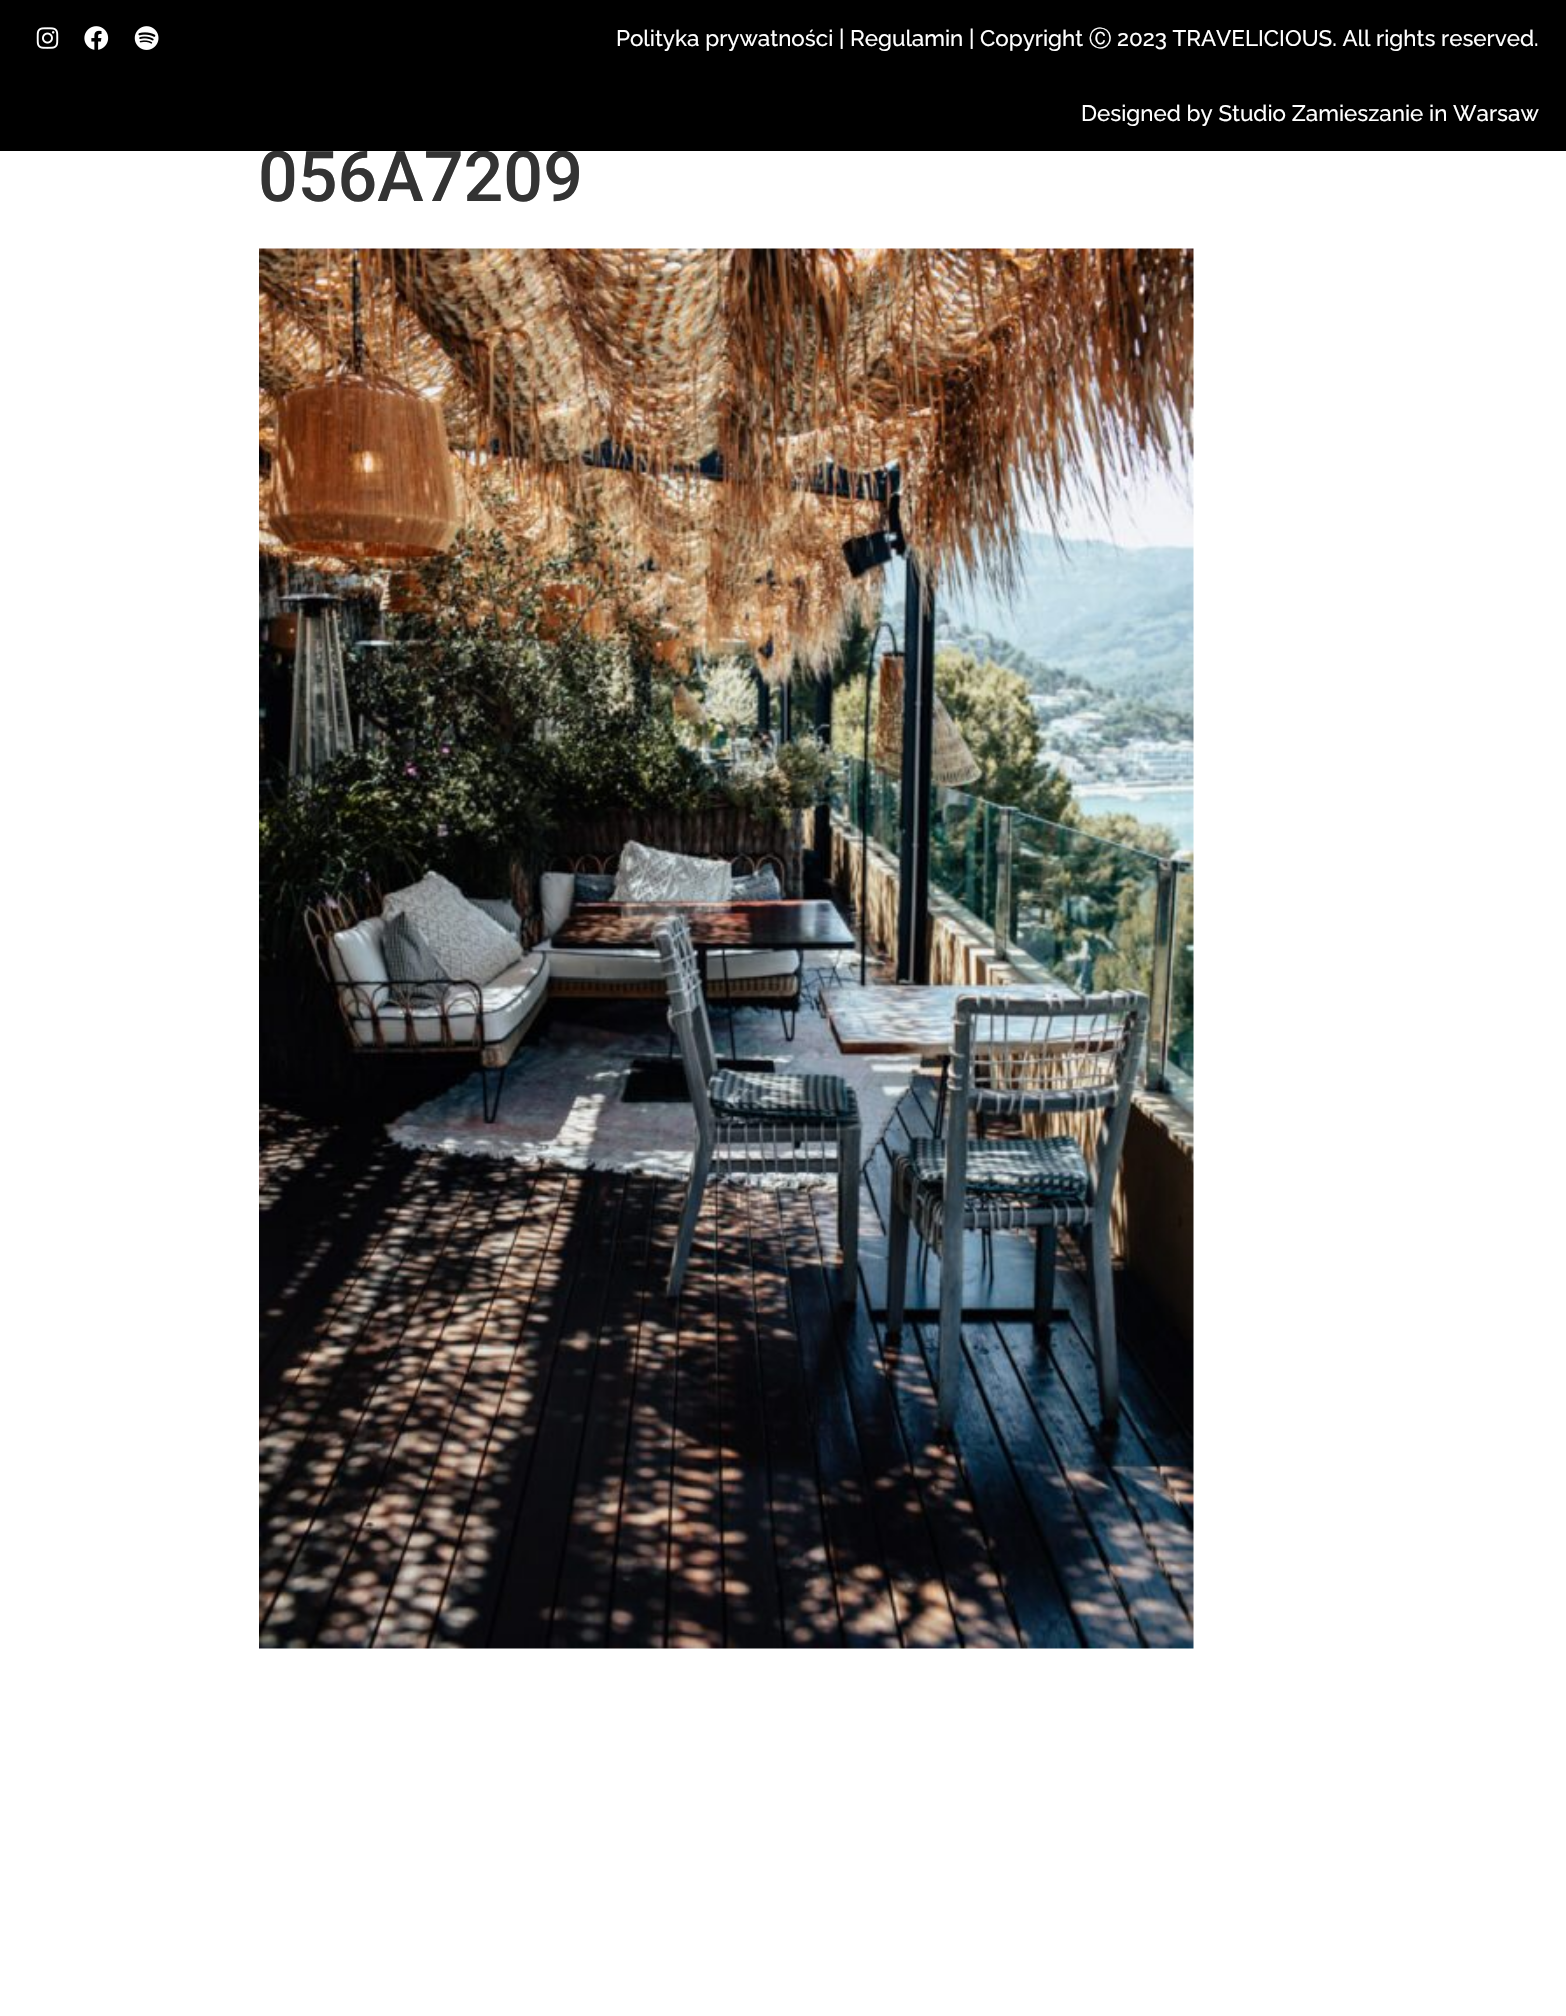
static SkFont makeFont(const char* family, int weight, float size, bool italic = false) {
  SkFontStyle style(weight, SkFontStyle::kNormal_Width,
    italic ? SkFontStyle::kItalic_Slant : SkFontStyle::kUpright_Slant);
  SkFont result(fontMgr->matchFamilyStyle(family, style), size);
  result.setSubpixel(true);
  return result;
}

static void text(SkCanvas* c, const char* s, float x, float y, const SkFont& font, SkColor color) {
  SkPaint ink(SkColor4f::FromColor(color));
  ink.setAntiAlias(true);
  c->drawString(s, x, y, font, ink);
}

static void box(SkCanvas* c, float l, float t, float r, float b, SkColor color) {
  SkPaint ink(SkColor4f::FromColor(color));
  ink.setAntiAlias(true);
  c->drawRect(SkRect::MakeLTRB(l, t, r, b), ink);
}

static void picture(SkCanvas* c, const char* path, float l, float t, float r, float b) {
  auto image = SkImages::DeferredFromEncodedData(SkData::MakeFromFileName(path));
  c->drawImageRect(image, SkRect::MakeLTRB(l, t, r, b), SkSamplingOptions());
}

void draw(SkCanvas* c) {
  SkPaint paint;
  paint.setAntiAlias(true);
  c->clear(0xffffffff);
  SkFont face1 = makeFont("Roboto", 500, 70);
  text(c, "056A7209", 258, 201, face1, 0xff333333);
  box(c, 0, 0, 1566, 151, 0xff000000);
  picture(c, "img_01.png", 36, 27, 59, 49);
  picture(c, "img_02.png", 84, 26, 109, 50);
  picture(c, "img_03.png", 134, 26, 159, 50);
  SkFont face2 = makeFont("Raleway", 500, 22.4f);
  text(c, "Polityka prywatności | Regulamin | Copyright", 616, 46, face2, 0xffffffff);
  SkFont face3 = makeFont("WenQuanYi Zen Hei", 500, 22.4f);
  text(c, "Ⓒ", 1089, 46, face3, 0xffffffff);
  text(c, "2023 TRAVELICIOUS. All rights reserved.", 1117, 46, face2, 0xffffffff);
  text(c, "Designed by Studio Zamieszanie in Warsaw", 1081, 121, face2, 0xffffffff);
  picture(c, "img_04.png", 259, 248, 1194, 1649);
}
